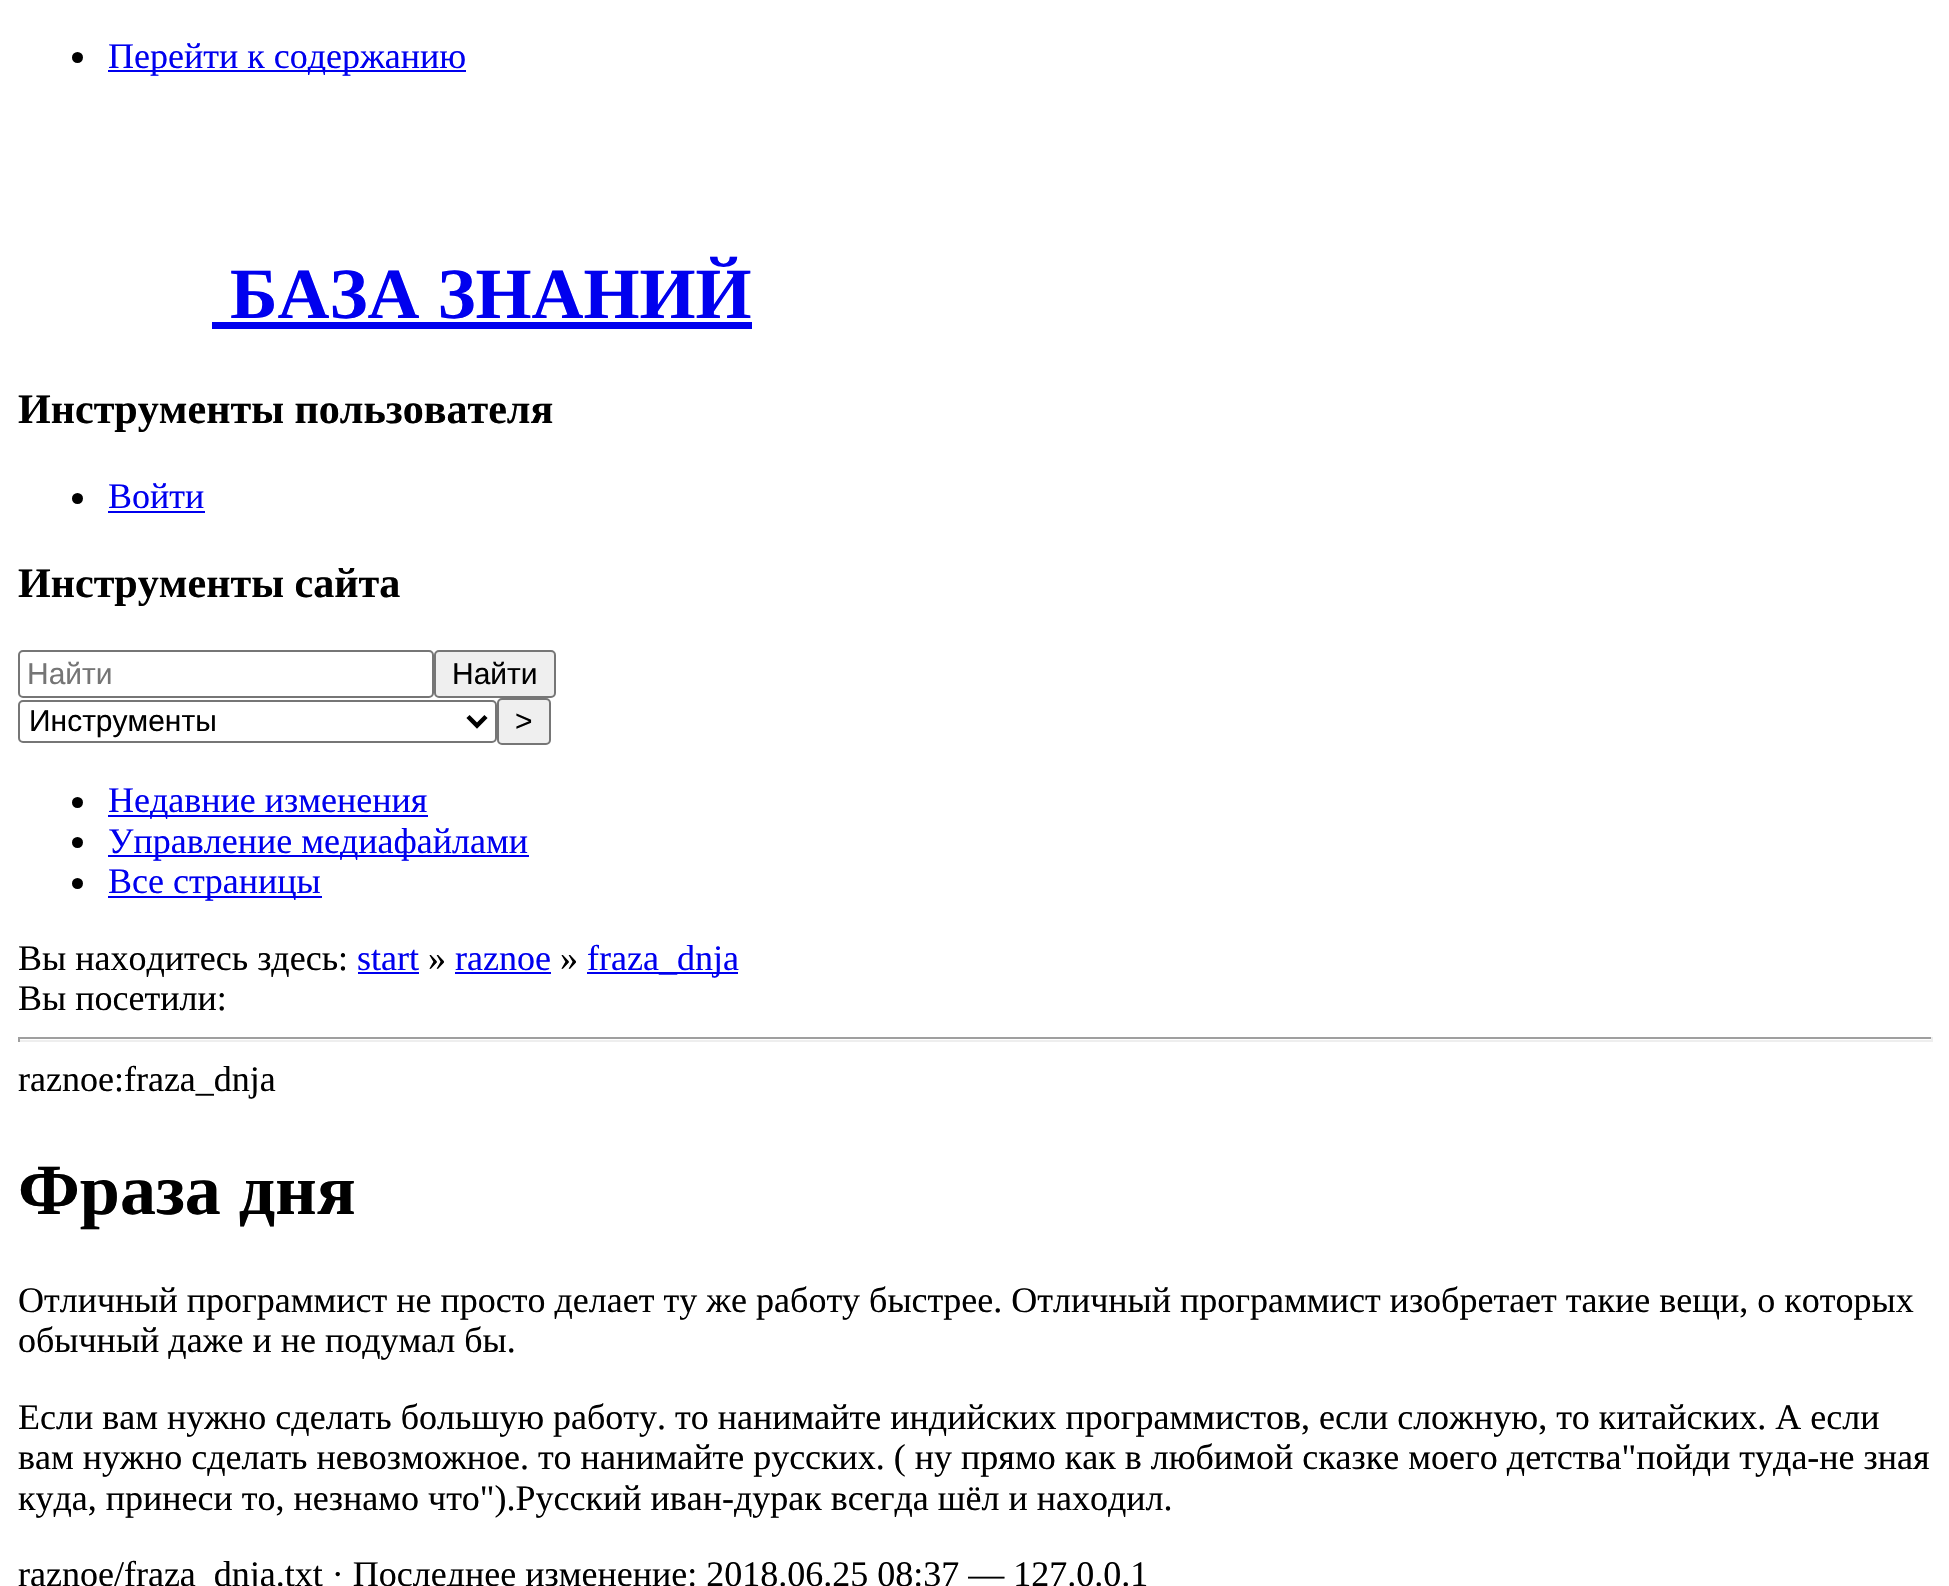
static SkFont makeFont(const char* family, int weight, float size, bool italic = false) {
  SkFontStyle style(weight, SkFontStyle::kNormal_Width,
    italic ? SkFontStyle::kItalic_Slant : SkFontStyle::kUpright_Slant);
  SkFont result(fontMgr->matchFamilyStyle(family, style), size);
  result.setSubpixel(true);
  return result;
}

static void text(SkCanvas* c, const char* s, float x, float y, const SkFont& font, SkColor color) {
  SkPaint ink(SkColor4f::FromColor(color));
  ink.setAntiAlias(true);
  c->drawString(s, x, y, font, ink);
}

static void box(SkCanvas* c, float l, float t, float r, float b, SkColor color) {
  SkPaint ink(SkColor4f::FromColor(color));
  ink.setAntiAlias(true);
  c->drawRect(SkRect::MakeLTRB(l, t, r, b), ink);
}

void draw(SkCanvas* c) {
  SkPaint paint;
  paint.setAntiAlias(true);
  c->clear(0xffffffff);
  paint.setColor(0xff000000);
  c->drawCircle(77.5f, 57.5f, 5.5f, paint);
  box(c, 108, 70, 466, 72, 0xff0000ee);
  SkFont face1 = makeFont("Liberation Serif", 400, 36);
  text(c, "Перейти к содержанию", 108, 68, face1, 0xff0000ee);
  SkFont face2 = makeFont("Liberation Serif", 700, 72);
  text(c, "БАЗА ЗНАНИЙ", 230, 318, face2, 0xff0000ee);
  box(c, 212, 322, 752, 329, 0xff0000ee);
  SkFont face3 = makeFont("Liberation Serif", 700, 42.1f);
  text(c, "Инструменты пользователя", 18, 423, face3, 0xff000000);
  c->drawCircle(77.5f, 498.5f, 5.5f, paint);
  text(c, "Войти", 108, 508, face1, 0xff0000ee);
  box(c, 108, 511, 205, 513, 0xff0000ee);
  text(c, "Инструменты сайта", 18, 597, face3, 0xff000000);
  paint.setStyle(SkPaint::kStroke_Style);
  paint.setStrokeWidth(2);
  paint.setColor(0xff767676);
  c->drawRoundRect(SkRect::MakeLTRB(19, 651, 433, 697), 4, 4, paint);
  SkFont face4 = makeFont("Liberation Sans", 400, 30);
  text(c, "Найти", 27, 684, face4, 0xff757575);
  paint.setStyle(SkPaint::kFill_Style);
  paint.setColor(0xffefefef);
  c->drawRoundRect(SkRect::MakeLTRB(435, 651, 555, 697), 4, 4, paint);
  paint.setStyle(SkPaint::kStroke_Style);
  paint.setColor(0xff767676);
  c->drawRoundRect(SkRect::MakeLTRB(435, 651, 555, 697), 4, 4, paint);
  text(c, "Найти", 452, 684, face4, 0xff000000);
  c->drawRoundRect(SkRect::MakeLTRB(19, 701, 496, 742), 4, 4, paint);
  paint.setStrokeWidth(4.5f);
  paint.setColor(0xff000000);
  c->drawPath(SkPathBuilder().moveTo(468, 716.5f).lineTo(477, 725.5f).lineTo(486, 716.5f).detach(), paint);
  text(c, "Инструменты", 29, 731, face4, 0xff000000);
  paint.setStyle(SkPaint::kFill_Style);
  paint.setColor(0xffefefef);
  c->drawRoundRect(SkRect::MakeLTRB(498, 699, 550, 744), 4, 4, paint);
  paint.setStyle(SkPaint::kStroke_Style);
  paint.setStrokeWidth(2);
  paint.setColor(0xff767676);
  c->drawRoundRect(SkRect::MakeLTRB(498, 699, 550, 744), 4, 4, paint);
  text(c, ">", 515, 731, face4, 0xff000000);
  paint.setStyle(SkPaint::kFill_Style);
  paint.setColor(0xff000000);
  c->drawCircle(77.5f, 802.5f, 5.5f, paint);
  box(c, 108, 815, 428, 817, 0xff0000ee);
  text(c, "Недавние изменения", 108, 812, face1, 0xff0000ee);
  c->drawCircle(77.5f, 842.5f, 5.5f, paint);
  box(c, 108, 855, 529, 857, 0xff0000ee);
  text(c, "Управление медиафайлами", 108, 853, face1, 0xff0000ee);
  c->drawCircle(77.5f, 883.5f, 5.5f, paint);
  box(c, 108, 896, 322, 898, 0xff0000ee);
  text(c, "Все страницы", 108, 893, face1, 0xff0000ee);
  text(c, "Вы находитесь здесь:", 18, 970, face1, 0xff000000);
  text(c, "start", 357, 970, face1, 0xff0000ee);
  box(c, 358, 972, 419, 974, 0xff0000ee);
  text(c, "»", 428, 970, face1, 0xff000000);
  text(c, "raznoe", 455, 970, face1, 0xff0000ee);
  box(c, 455, 972, 551, 974, 0xff0000ee);
  text(c, "»", 560, 970, face1, 0xff000000);
  box(c, 587, 972, 738, 974, 0xff0000ee);
  text(c, "fraza_dnja", 587, 970, face1, 0xff0000ee);
  text(c, "Вы посетили:", 18, 1010, face1, 0xff000000);
  box(c, 18, 1037, 1933, 1039, 0xff9f9f9f);
  box(c, 1931, 1037, 1933, 1042, 0xffeeeeee);
  box(c, 18, 1040, 1933, 1042, 0xffeeeeee);
  box(c, 18, 1037, 20, 1042, 0xff9f9f9f);
  text(c, "raznoe:fraza_dnja", 18, 1091, face1, 0xff000000);
  text(c, "Фраза дня", 18, 1214, face2, 0xff000000);
  text(c, "Отличный программист не просто делает ту же работу быстрее. Отличный программист изобретает такие вещи, о которых", 18, 1312, face1, 0xff000000);
  text(c, "обычный даже и не подумал бы.", 18, 1352, face1, 0xff000000);
  text(c, "Если вам нужно сделать большую работу. то нанимайте индийских программистов, если сложную, то китайских. А если", 18, 1429, face1, 0xff000000);
  text(c, "вам нужно сделать невозможное. то нанимайте русских. ( ну прямо как в любимой сказке моего детства\"пойди туда-не зная", 18, 1469, face1, 0xff000000);
  text(c, "куда, принеси то, незнамо что\").Русский иван-дурак всегда шёл и находил.", 18, 1510, face1, 0xff000000);
  text(c, "raznoe/fraza_dnja.txt · Последнее изменение: 2018.06.25 08:37 — 127.0.0.1", 18, 1586, face1, 0xff000000);
}
